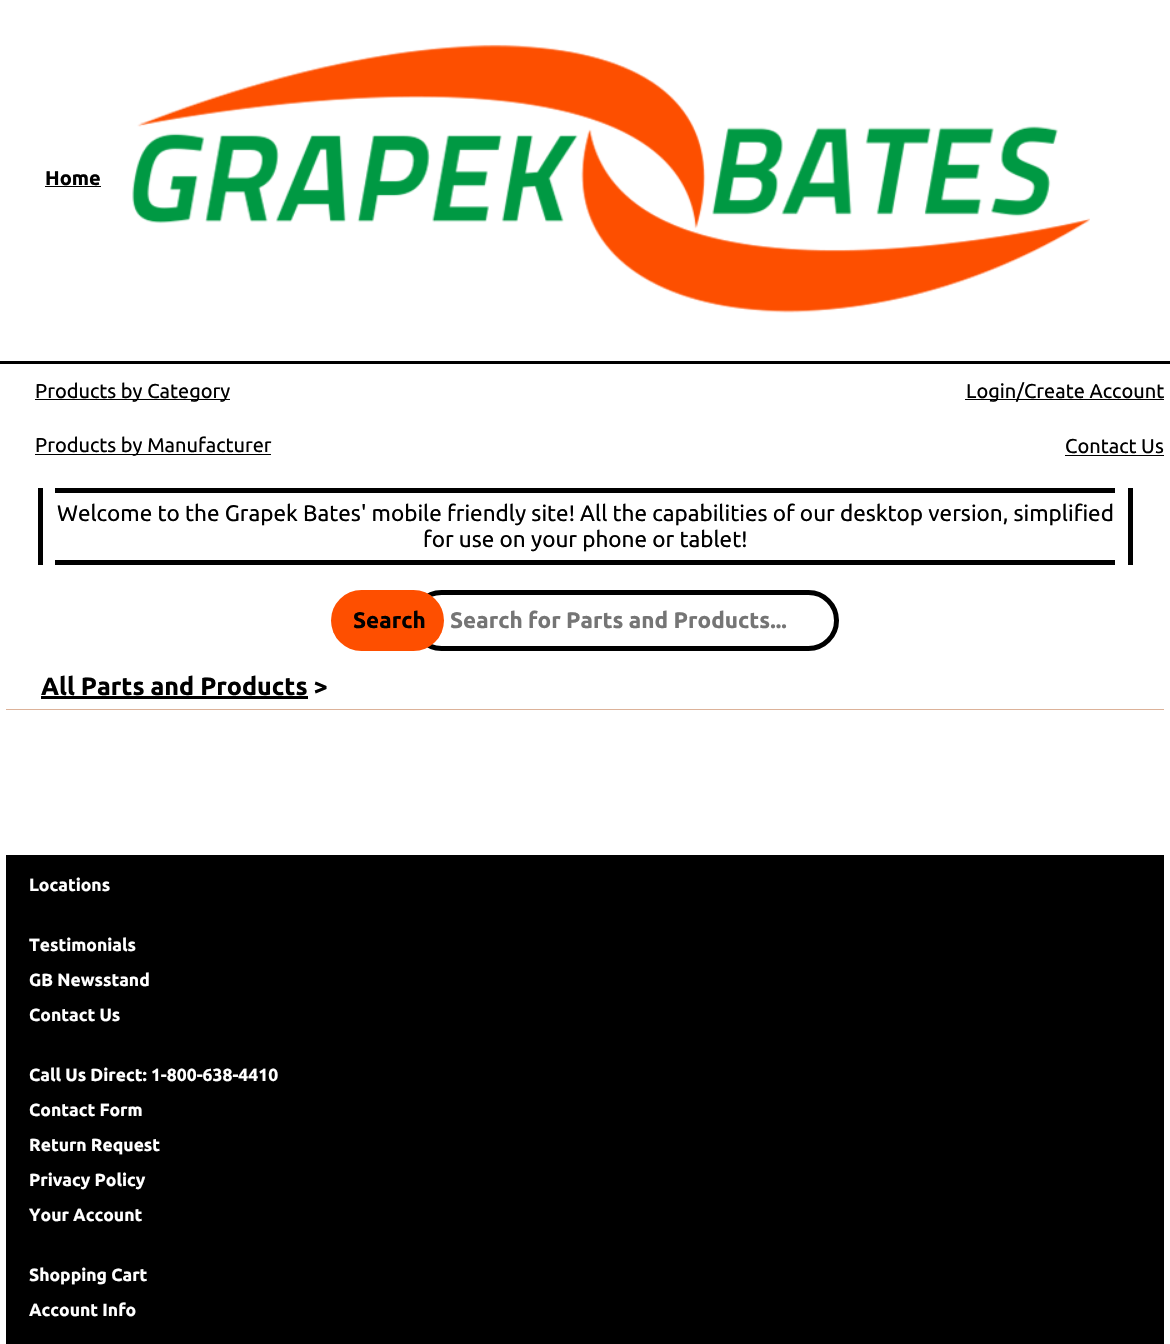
static SkFont makeFont(const char* family, int weight, float size, bool italic = false) {
  SkFontStyle style(weight, SkFontStyle::kNormal_Width,
    italic ? SkFontStyle::kItalic_Slant : SkFontStyle::kUpright_Slant);
  SkFont result(fontMgr->matchFamilyStyle(family, style), size);
  result.setSubpixel(true);
  return result;
}

static void text(SkCanvas* c, const char* s, float x, float y, const SkFont& font, SkColor color) {
  SkPaint ink(SkColor4f::FromColor(color));
  ink.setAntiAlias(true);
  c->drawString(s, x, y, font, ink);
}

static void box(SkCanvas* c, float l, float t, float r, float b, SkColor color) {
  SkPaint ink(SkColor4f::FromColor(color));
  ink.setAntiAlias(true);
  c->drawRect(SkRect::MakeLTRB(l, t, r, b), ink);
}

static void roundBox(SkCanvas* c, float l, float t, float r, float b, float radius, SkColor color) {
  SkPaint ink(SkColor4f::FromColor(color));
  ink.setAntiAlias(true);
  c->drawRoundRect(SkRect::MakeLTRB(l, t, r, b), radius, radius, ink);
}

static void picture(SkCanvas* c, const char* path, float l, float t, float r, float b) {
  auto image = SkImages::DeferredFromEncodedData(SkData::MakeFromFileName(path));
  c->drawImageRect(image, SkRect::MakeLTRB(l, t, r, b), SkSamplingOptions());
}

void draw(SkCanvas* c) {
  SkPaint paint;
  paint.setAntiAlias(true);
  c->clear(0xffffffff);
  box(c, 0, 361, 1170, 364, 0xff000000);
  SkFont face1 = makeFont("Ubuntu", 700, 20);
  text(c, "Home", 45, 185, face1, 0xff000000);
  box(c, 45, 186, 101, 187, 0xff000000);
  picture(c, "img_01.png", 132, 44, 1090, 313);
  box(c, 35, 399, 230, 400, 0xff000000);
  SkFont face2 = makeFont("Ubuntu", 400, 20);
  text(c, "Products by Category", 35, 398, face2, 0xff000000);
  box(c, 965, 399, 1164, 400, 0xff000000);
  text(c, "Login/Create Account", 966, 398, face2, 0xff000000);
  box(c, 35, 454, 271, 455, 0xff000000);
  text(c, "Products by Manufacturer", 35, 452, face2, 0xff000000);
  text(c, "Contact Us", 1065, 453, face2, 0xff000000);
  box(c, 1065, 455, 1164, 456, 0xff000000);
  box(c, 1128, 488, 1133, 565, 0xff000000);
  box(c, 38, 488, 43, 565, 0xff000000);
  box(c, 55, 488, 1115, 493, 0xff000000);
  box(c, 55, 560, 1115, 565, 0xff000000);
  SkFont face3 = makeFont("Ubuntu", 400, 22.5f);
  text(c, "Welcome to the Grapek Bates' mobile friendly site! All the capabilities of our desktop version, simplified", 57, 521, face3, 0xff000000);
  text(c, "for use on your phone or tablet!", 423, 547, face3, 0xff000000);
  paint.setStyle(SkPaint::kStroke_Style);
  paint.setStrokeWidth(5);
  paint.setColor(0xff000000);
  c->drawRoundRect(SkRect::MakeLTRB(413.5f, 592.5f, 836.5f, 648.5f), 28, 28, paint);
  roundBox(c, 331, 590, 444, 651, 30.5f, 0xfffe4f00);
  SkFont face4 = makeFont("Ubuntu", 700, 22.5f);
  text(c, "Search", 353, 628, face4, 0xff000000);
  text(c, "Search for Parts and Products...", 450, 628, face4, 0xff757575);
  box(c, 6, 709, 1164, 710, 0xffdcb299);
  SkFont face5 = makeFont("Ubuntu", 700, 25);
  text(c, "All Parts and Products >", 41, 695, face5, 0xff000000);
  box(c, 41, 696, 308, 699, 0xff000000);
  box(c, 6, 855, 1164, 1344, 0xff000000);
  SkFont face6 = makeFont("Ubuntu", 700, 17.5f);
  text(c, "Locations", 29, 891, face6, 0xffffffff);
  text(c, "Testimonials", 29, 951, face6, 0xffffffff);
  text(c, "GB Newsstand", 29, 986, face6, 0xffffffff);
  text(c, "Contact Us", 29, 1021, face6, 0xffffffff);
  text(c, "Call Us Direct: 1-800-638-4410", 29, 1081, face6, 0xffffffff);
  text(c, "Contact Form", 29, 1116, face6, 0xffffffff);
  text(c, "Return Request", 29, 1151, face6, 0xffffffff);
  text(c, "Privacy Policy", 29, 1186, face6, 0xffffffff);
  text(c, "Your Account", 29, 1221, face6, 0xffffffff);
  text(c, "Shopping Cart", 29, 1281, face6, 0xffffffff);
  text(c, "Account Info", 29, 1316, face6, 0xffffffff);
}
